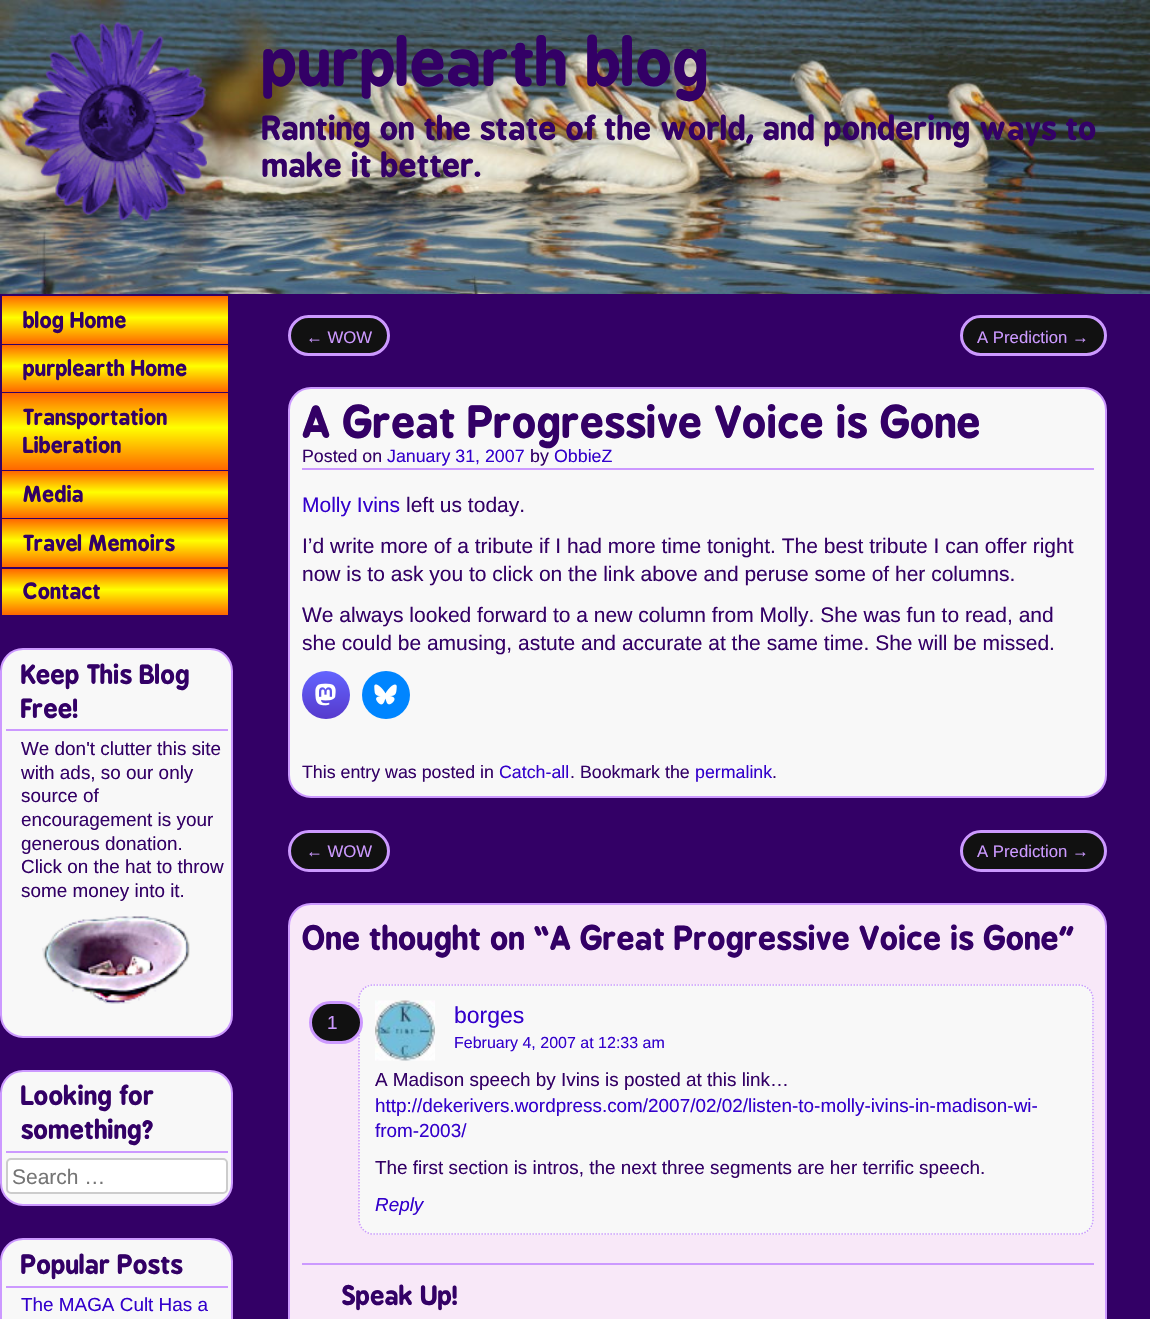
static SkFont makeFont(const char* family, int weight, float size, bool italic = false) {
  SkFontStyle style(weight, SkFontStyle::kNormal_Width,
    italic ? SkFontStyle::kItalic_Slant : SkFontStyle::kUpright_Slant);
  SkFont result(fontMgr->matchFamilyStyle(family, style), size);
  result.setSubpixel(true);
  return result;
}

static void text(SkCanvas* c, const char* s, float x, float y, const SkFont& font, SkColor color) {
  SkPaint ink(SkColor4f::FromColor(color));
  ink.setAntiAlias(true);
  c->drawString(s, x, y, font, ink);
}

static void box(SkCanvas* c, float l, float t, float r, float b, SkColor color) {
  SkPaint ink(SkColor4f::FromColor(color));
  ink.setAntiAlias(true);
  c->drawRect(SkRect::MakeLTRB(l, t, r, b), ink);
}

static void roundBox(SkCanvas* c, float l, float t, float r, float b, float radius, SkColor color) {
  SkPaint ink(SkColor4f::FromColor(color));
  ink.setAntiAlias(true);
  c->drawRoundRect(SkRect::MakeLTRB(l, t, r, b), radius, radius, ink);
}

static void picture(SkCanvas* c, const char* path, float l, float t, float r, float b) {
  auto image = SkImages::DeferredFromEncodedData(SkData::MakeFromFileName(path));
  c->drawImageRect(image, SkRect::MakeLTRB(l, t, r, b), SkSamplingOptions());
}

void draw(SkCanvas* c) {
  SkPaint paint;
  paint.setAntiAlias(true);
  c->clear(0xff330066);
  picture(c, "img_01.png", 0, 0, 1150, 294);
  picture(c, "img_02.png", 22, 22, 207, 221);
  SkFont face1 = makeFont("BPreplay", 700, 63);
  text(c, "purplearth blog", 262, 86, face1, 0xff330066);
  SkFont face2 = makeFont("BPreplay", 700, 31.5f);
  text(c, "Ranting on the state of the world, and pondering ways to", 262, 140, face2, 0xff330066);
  text(c, "make it better.", 262, 177, face2, 0xff330066);
  {
    const SkColor colors[] = {0xffff6600, 0xffffff00, 0xffff6600};
    const float stops[] = {0, 0.45f, 1};
    const SkPoint ends[] = {{115, 296}, {115, 344}};
    paint.setShader(SkGradientShader::MakeLinear(ends, colors, stops, 3, SkTileMode::kClamp));
    paint.setAlpha(255);
  }
  c->drawRect(SkRect::MakeLTRB(2, 296, 228, 344), paint);
  SkFont face3 = makeFont("BPreplay", 700, 21);
  text(c, "blog Home", 23, 328, face3, 0xff330066);
  {
    const SkColor colors[] = {0xffff6600, 0xffffff00, 0xffff6600};
    const float stops[] = {0, 0.45f, 1};
    const SkPoint ends[] = {{115, 345}, {115, 392}};
    paint.setShader(SkGradientShader::MakeLinear(ends, colors, stops, 3, SkTileMode::kClamp));
    paint.setAlpha(255);
  }
  c->drawRect(SkRect::MakeLTRB(2, 345, 228, 392), paint);
  text(c, "purplearth Home", 23, 376, face3, 0xff330066);
  {
    const SkColor colors[] = {0xffff6600, 0xffffff00, 0xffff6600};
    const float stops[] = {0, 0.45f, 1};
    const SkPoint ends[] = {{115, 393}, {115, 470}};
    paint.setShader(SkGradientShader::MakeLinear(ends, colors, stops, 3, SkTileMode::kClamp));
    paint.setAlpha(255);
  }
  c->drawRect(SkRect::MakeLTRB(2, 393, 228, 470), paint);
  text(c, "Transportation", 23, 425, face3, 0xff330066);
  text(c, "Liberation", 23, 453, face3, 0xff330066);
  {
    const SkColor colors[] = {0xffff6600, 0xffffff00, 0xffff6600};
    const float stops[] = {0, 0.45f, 1};
    const SkPoint ends[] = {{115, 471}, {115, 518}};
    paint.setShader(SkGradientShader::MakeLinear(ends, colors, stops, 3, SkTileMode::kClamp));
    paint.setAlpha(255);
  }
  c->drawRect(SkRect::MakeLTRB(2, 471, 228, 518), paint);
  text(c, "Media", 23, 502, face3, 0xff330066);
  {
    const SkColor colors[] = {0xffff6600, 0xffffff00, 0xffff6600};
    const float stops[] = {0, 0.45f, 1};
    const SkPoint ends[] = {{115, 519}, {115, 567}};
    paint.setShader(SkGradientShader::MakeLinear(ends, colors, stops, 3, SkTileMode::kClamp));
    paint.setAlpha(255);
  }
  c->drawRect(SkRect::MakeLTRB(2, 519, 228, 567), paint);
  text(c, "Travel Memoirs", 23, 551, face3, 0xff330066);
  {
    const SkColor colors[] = {0xffff6600, 0xffffff00, 0xffff6600};
    const float stops[] = {0, 0.45f, 1};
    const SkPoint ends[] = {{115, 569}, {115, 615}};
    paint.setShader(SkGradientShader::MakeLinear(ends, colors, stops, 3, SkTileMode::kClamp));
    paint.setAlpha(255);
  }
  c->drawRect(SkRect::MakeLTRB(2, 569, 228, 615), paint);
  text(c, "Contact", 23, 599, face3, 0xff330066);
  paint.setShader(nullptr);
  paint.setColor(0xff111111);
  c->drawRoundRect(SkRect::MakeLTRB(289.5f, 316.5f, 388.5f, 354.5f), 19, 19, paint);
  paint.setStyle(SkPaint::kStroke_Style);
  paint.setStrokeWidth(3);
  paint.setColor(0xffcc99ff);
  c->drawRoundRect(SkRect::MakeLTRB(289.5f, 316.5f, 388.5f, 354.5f), 19, 19, paint);
  SkFont face4 = makeFont("Liberation Sans", 400, 16.75f);
  text(c, "← WOW", 306, 343, face4, 0xffcc99ff);
  paint.setStyle(SkPaint::kFill_Style);
  paint.setColor(0xff111111);
  c->drawRoundRect(SkRect::MakeLTRB(961.5f, 316.5f, 1105.5f, 354.5f), 19, 19, paint);
  paint.setStyle(SkPaint::kStroke_Style);
  paint.setColor(0xffcc99ff);
  c->drawRoundRect(SkRect::MakeLTRB(961.5f, 316.5f, 1105.5f, 354.5f), 19, 19, paint);
  text(c, "A Prediction →", 977, 343, face4, 0xffcc99ff);
  paint.setStyle(SkPaint::kFill_Style);
  paint.setColor(0xfff8f8f8);
  c->drawRoundRect(SkRect::MakeLTRB(289, 388, 1106, 797), 22, 22, paint);
  paint.setStyle(SkPaint::kStroke_Style);
  paint.setStrokeWidth(2);
  paint.setColor(0xffcc99ff);
  c->drawRoundRect(SkRect::MakeLTRB(289, 388, 1106, 797), 22, 22, paint);
  box(c, 302, 468, 1094, 470, 0xffcc99ff);
  SkFont face5 = makeFont("BPreplay", 700, 42);
  text(c, "A Great Progressive Voice is Gone", 302, 438, face5, 0xff330066);
  SkFont face6 = makeFont("Liberation Sans", 400, 17.8f);
  text(c, "Posted on", 302, 462, face6, 0xff330066);
  text(c, "January 31, 2007", 387, 462, face6, 0xff3300cc);
  text(c, "by", 530, 462, face6, 0xff330066);
  text(c, "ObbieZ", 554, 462, face6, 0xff3300cc);
  SkFont face7 = makeFont("Liberation Sans", 400, 21);
  text(c, "Molly Ivins", 302, 512, face7, 0xff3300cc);
  text(c, "left us today.", 406, 512, face7, 0xff330066);
  text(c, "I’d write more of a tribute if I had more time tonight. The best tribute I can offer right", 302, 553, face7, 0xff330066);
  text(c, "now is to ask you to click on the link above and peruse some of her columns.", 302, 581, face7, 0xff330066);
  text(c, "We always looked forward to a new column from Molly. She was fun to read, and", 302, 622, face7, 0xff330066);
  text(c, "she could be amusing, astute and accurate at the same time. She will be missed.", 302, 650, face7, 0xff330066);
  paint.setStyle(SkPaint::kFill_Style);
  {
    const SkColor colors[] = {0xff563acc, 0xff6364ff};
    const float stops[] = {0, 1};
    const SkPoint ends[] = {{326, 719}, {326, 671}};
    paint.setShader(SkGradientShader::MakeLinear(ends, colors, stops, 2, SkTileMode::kClamp));
    paint.setAlpha(255);
  }
  c->drawCircle(326, 695, 24, paint);
  picture(c, "img_03.png", 315, 683, 336, 706);
  paint.setShader(nullptr);
  paint.setColor(0xff0085ff);
  c->drawCircle(386, 695, 24, paint);
  picture(c, "img_04.png", 374, 684, 397, 705);
  text(c, "This entry was posted in", 302, 778, face6, 0xff330066);
  text(c, "Catch-all", 499, 778, face6, 0xff3300cc);
  text(c, ". Bookmark the", 570, 778, face6, 0xff330066);
  text(c, "permalink", 695, 778, face6, 0xff3300cc);
  text(c, ".", 772, 778, face6, 0xff330066);
  paint.setColor(0xff111111);
  c->drawRoundRect(SkRect::MakeLTRB(289.5f, 831.5f, 388.5f, 870.5f), 19.5f, 19.5f, paint);
  paint.setStyle(SkPaint::kStroke_Style);
  paint.setStrokeWidth(3);
  paint.setColor(0xffcc99ff);
  c->drawRoundRect(SkRect::MakeLTRB(289.5f, 831.5f, 388.5f, 870.5f), 19.5f, 19.5f, paint);
  text(c, "← WOW", 306, 857, face4, 0xffcc99ff);
  paint.setStyle(SkPaint::kFill_Style);
  paint.setColor(0xff111111);
  c->drawRoundRect(SkRect::MakeLTRB(961.5f, 831.5f, 1105.5f, 870.5f), 19.5f, 19.5f, paint);
  paint.setStyle(SkPaint::kStroke_Style);
  paint.setColor(0xffcc99ff);
  c->drawRoundRect(SkRect::MakeLTRB(961.5f, 831.5f, 1105.5f, 870.5f), 19.5f, 19.5f, paint);
  text(c, "A Prediction →", 977, 857, face4, 0xffcc99ff);
  paint.setStyle(SkPaint::kFill_Style);
  paint.setColor(0xfff8e8f8);
  c->drawRoundRect(SkRect::MakeLTRB(289, 904, 1106, 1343), 22, 22, paint);
  paint.setStyle(SkPaint::kStroke_Style);
  paint.setStrokeWidth(2);
  paint.setColor(0xffcc99ff);
  c->drawRoundRect(SkRect::MakeLTRB(289, 904, 1106, 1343), 22, 22, paint);
  text(c, "One thought on “A Great Progressive Voice is Gone”", 302, 950, face2, 0xff330066);
  roundBox(c, 359, 984, 1094, 1235, 15, 0xfff8f8f8);
  paint.setStrokeWidth(1.5f);
  paint.setPathEffect(SkDashPathEffect::Make({{1.5f, 1.5f}}, 0));
  c->drawPath(SkPathBuilder().moveTo(373.5f, 985).lineTo(1078.5f, 985).cubicTo(1086.5f, 985, 1093, 991, 1093, 999).lineTo(1093, 1219.5f).cubicTo(1093, 1227.5f, 1086.5f, 1234, 1078.5f, 1234).lineTo(373.5f, 1234).cubicTo(365.5f, 1234, 359, 1227.5f, 359, 1219.5f).lineTo(359, 999).cubicTo(359, 991, 365.5f, 985, 373.5f, 985).close().detach(), paint);
  paint.setPathEffect(nullptr);
  paint.setStyle(SkPaint::kFill_Style);
  paint.setColor(0xff111111);
  c->drawRoundRect(SkRect::MakeLTRB(310.5f, 1002.5f, 361.5f, 1042.5f), 20, 20, paint);
  paint.setStyle(SkPaint::kStroke_Style);
  paint.setStrokeWidth(3);
  paint.setColor(0xffcc99ff);
  c->drawRoundRect(SkRect::MakeLTRB(310.5f, 1002.5f, 361.5f, 1042.5f), 20, 20, paint);
  SkFont face8 = makeFont("Liberation Sans", 400, 18.9f);
  text(c, "1", 327, 1029, face8, 0xffcc99ff);
  picture(c, "img_05.png", 375, 1000, 435, 1061);
  SkFont face9 = makeFont("Liberation Sans", 400, 23);
  text(c, "borges", 454, 1023, face9, 0xff3300cc);
  SkFont face10 = makeFont("Liberation Sans", 400, 16);
  text(c, "February 4, 2007 at 12:33 am", 454, 1048, face10, 0xff3300cc);
  text(c, "A Madison speech by Ivins is posted at this link…", 375, 1086, face8, 0xff330066);
  text(c, "http://dekerivers.wordpress.com/2007/02/02/listen-to-molly-ivins-in-madison-wi-", 375, 1112, face8, 0xff3300cc);
  text(c, "from-2003/", 375, 1137, face8, 0xff3300cc);
  text(c, "The first section is intros, the next three segments are her terrific speech.", 375, 1174, face8, 0xff330066);
  SkFont face11 = makeFont("Liberation Sans", 400, 18.9f, true);
  text(c, "Reply", 375, 1211, face11, 0xff3300cc);
  box(c, 302, 1263, 1094, 1265, 0xffcc99ff);
  SkFont face12 = makeFont("BPreplay", 700, 25.25f);
  text(c, "Speak Up!", 342, 1305, face12, 0xff330066);
  paint.setStyle(SkPaint::kFill_Style);
  paint.setColor(0xfff8f8f8);
  c->drawRoundRect(SkRect::MakeLTRB(1, 649, 232, 1037), 22, 22, paint);
  paint.setStyle(SkPaint::kStroke_Style);
  paint.setStrokeWidth(2);
  paint.setColor(0xffcc99ff);
  c->drawRoundRect(SkRect::MakeLTRB(1, 649, 232, 1037), 22, 22, paint);
  box(c, 6, 729, 228, 731, 0xffcc99ff);
  text(c, "Keep This Blog", 21, 684, face12, 0xff330066);
  text(c, "Free!", 21, 718, face12, 0xff330066);
  text(c, "We don't clutter this site", 21, 755, face8, 0xff330066);
  text(c, "with ads, so our only", 21, 779, face8, 0xff330066);
  text(c, "source of", 21, 802, face8, 0xff330066);
  text(c, "encouragement is your", 21, 826, face8, 0xff330066);
  text(c, "generous donation.", 21, 850, face8, 0xff330066);
  text(c, "Click on the hat to throw", 21, 873, face8, 0xff330066);
  text(c, "some money into it.", 21, 897, face8, 0xff330066);
  picture(c, "img_06.png", 42, 916, 190, 1004);
  paint.setStyle(SkPaint::kFill_Style);
  paint.setColor(0xfff8f8f8);
  c->drawRoundRect(SkRect::MakeLTRB(1, 1071, 232, 1205), 22, 22, paint);
  paint.setStyle(SkPaint::kStroke_Style);
  paint.setColor(0xffcc99ff);
  c->drawRoundRect(SkRect::MakeLTRB(1, 1071, 232, 1205), 22, 22, paint);
  box(c, 6, 1151, 228, 1153, 0xffcc99ff);
  text(c, "Looking for", 21, 1105, face12, 0xff330066);
  text(c, "something?", 21, 1139, face12, 0xff330066);
  paint.setStyle(SkPaint::kFill_Style);
  paint.setColor(0xffffffff);
  c->drawRoundRect(SkRect::MakeLTRB(7, 1159, 227, 1193), 4, 4, paint);
  paint.setStyle(SkPaint::kStroke_Style);
  paint.setColor(0xffcccccc);
  c->drawRoundRect(SkRect::MakeLTRB(7, 1159, 227, 1193), 4, 4, paint);
  text(c, "Search …", 12, 1184, face7, 0xff757575);
  paint.setStyle(SkPaint::kFill_Style);
  paint.setColor(0xfff8f8f8);
  c->drawRoundRect(SkRect::MakeLTRB(1, 1239, 232, 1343), 22, 22, paint);
  paint.setStyle(SkPaint::kStroke_Style);
  paint.setColor(0xffcc99ff);
  c->drawRoundRect(SkRect::MakeLTRB(1, 1239, 232, 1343), 22, 22, paint);
  box(c, 6, 1286, 228, 1288, 0xffcc99ff);
  text(c, "Popular Posts", 21, 1274, face12, 0xff330066);
  text(c, "The MAGA Cult Has a", 21, 1311, face8, 0xff3300cc);
}
